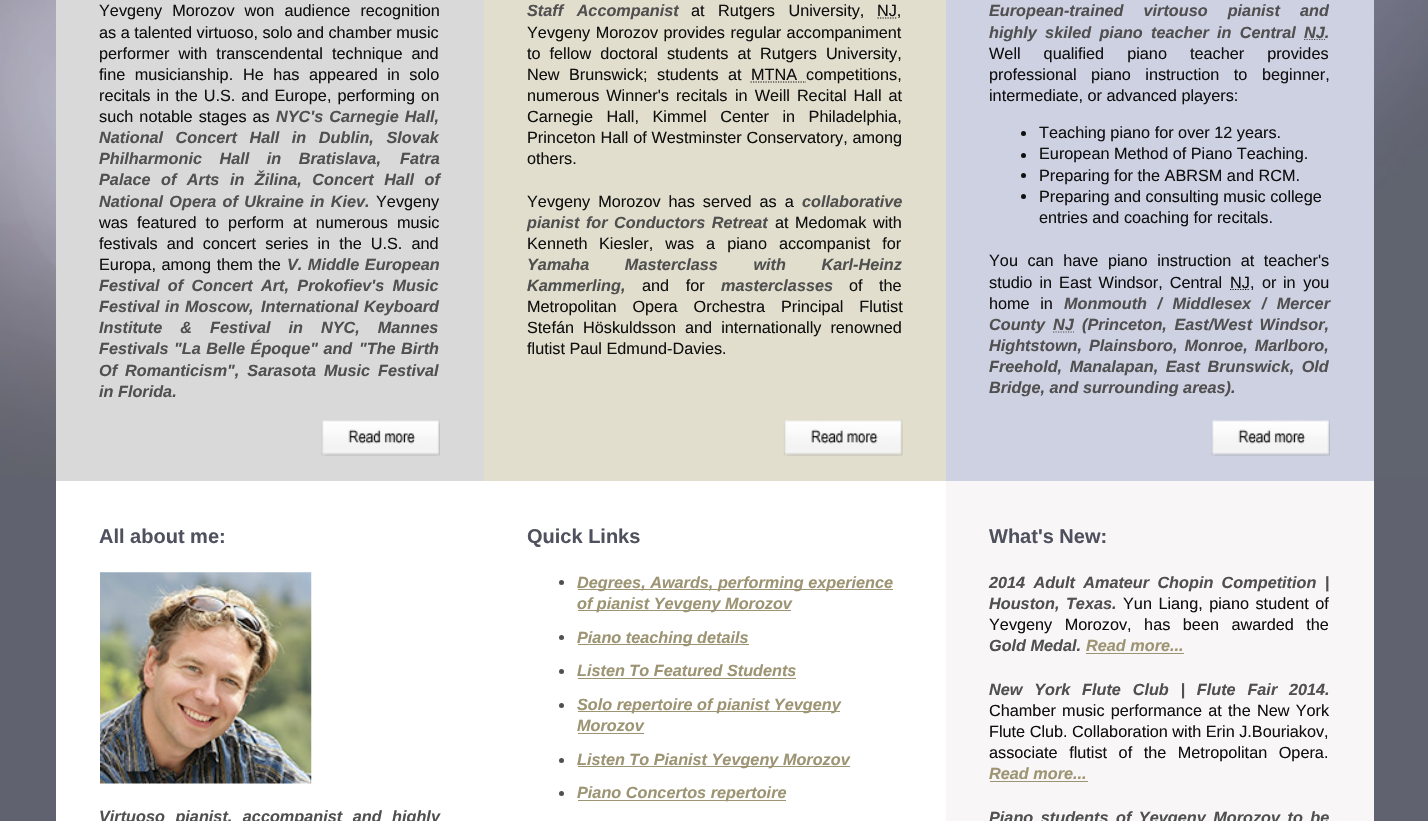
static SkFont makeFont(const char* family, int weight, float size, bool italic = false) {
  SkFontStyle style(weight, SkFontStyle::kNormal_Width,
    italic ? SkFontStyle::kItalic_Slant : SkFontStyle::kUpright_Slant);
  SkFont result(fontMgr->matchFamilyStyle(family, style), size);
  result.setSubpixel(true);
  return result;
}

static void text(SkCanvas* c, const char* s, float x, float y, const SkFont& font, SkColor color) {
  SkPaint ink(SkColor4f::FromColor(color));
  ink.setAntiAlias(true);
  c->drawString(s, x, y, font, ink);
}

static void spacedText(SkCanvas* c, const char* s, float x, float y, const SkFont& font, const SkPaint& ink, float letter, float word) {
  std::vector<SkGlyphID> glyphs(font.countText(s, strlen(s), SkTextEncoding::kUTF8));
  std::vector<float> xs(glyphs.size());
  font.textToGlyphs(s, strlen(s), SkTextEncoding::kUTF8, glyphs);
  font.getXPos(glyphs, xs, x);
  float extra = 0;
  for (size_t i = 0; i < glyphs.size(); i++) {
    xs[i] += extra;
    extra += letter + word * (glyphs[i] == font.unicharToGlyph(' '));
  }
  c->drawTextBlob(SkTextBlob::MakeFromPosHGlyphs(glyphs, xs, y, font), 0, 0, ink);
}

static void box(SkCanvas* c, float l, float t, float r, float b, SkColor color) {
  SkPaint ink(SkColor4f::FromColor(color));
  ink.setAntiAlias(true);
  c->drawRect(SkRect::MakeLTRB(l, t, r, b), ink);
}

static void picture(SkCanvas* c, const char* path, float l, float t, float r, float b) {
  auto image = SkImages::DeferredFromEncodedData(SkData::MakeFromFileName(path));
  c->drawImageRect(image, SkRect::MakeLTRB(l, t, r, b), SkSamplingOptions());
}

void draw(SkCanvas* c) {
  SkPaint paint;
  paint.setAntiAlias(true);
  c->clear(0xff60636f);
  picture(c, "img_01.png", 0, 0, 1428, 478);
  box(c, 56, 481, 946, 821, 0xffffffff);
  box(c, 56, 0, 484, 481, 0xffd9d9d9);
  SkFont face1 = makeFont("Liberation Sans", 400, 16.25f);
  paint.setColor(0xff101010);
  spacedText(c, "Yevgeny Morozov won audience recognition", 99, 16, face1, paint, 0, 5.5f);
  text(c, "as a talented virtuoso, solo and chamber music", 99, 38, face1, 0xff101010);
  spacedText(c, "performer with transcendental technique and", 99, 59, face1, paint, 0, 4.5f);
  spacedText(c, "fine musicianship.", 99, 80, face1, paint, 0, 5);
  spacedText(c, "He has appeared in solo", 243, 80, face1, paint, 0, 5);
  spacedText(c, "recitals in the U.S. and Europe, performing on", 99, 101, face1, paint, 0, 1.5f);
  spacedText(c, "such notable stages as", 99, 122, face1, paint, 0, 1.5f);
  SkFont face2 = makeFont("Liberation Sans", 700, 16.25f, true);
  paint.setColor(0xff505050);
  spacedText(c, "NYC's Carnegie Hall,", 276, 122, face2, paint, 0, 1.5f);
  spacedText(c, "National Concert Hall in Dublin, Slovak", 99, 143, face2, paint, 0, 8);
  spacedText(c, "Philharmonic Hall in Bratislava,", 99, 164, face2, paint, 0, 13);
  text(c, "Fatra", 400, 164, face2, 0xff505050);
  spacedText(c, "Palace of Arts in Žilina, Concert Hall of", 99, 185, face2, paint, 0, 6);
  spacedText(c, "National Opera of Ukraine in Kiev.", 99, 207, face2, paint, 0, 1.75f);
  text(c, "Yevgeny", 376, 207, face1, 0xff101010);
  paint.setColor(0xff101010);
  spacedText(c, "was featured to perform at numerous music", 99, 228, face1, paint, 0, 4.5f);
  spacedText(c, "festivals and concert series in the U.S. and", 99, 249, face1, paint, 0, 4.5f);
  spacedText(c, "Europa, among them the", 99, 270, face1, paint, 0, 1);
  paint.setColor(0xff505050);
  spacedText(c, "V. Middle European", 287, 270, face2, paint, 0, 1);
  spacedText(c, "Festival of Concert Art, Prokofiev's Music", 99, 291, face2, paint, 0, 3.75f);
  spacedText(c, "Festival in Moscow,", 99, 312, face2, paint, 0, 1);
  spacedText(c, "International Keyboard", 261, 312, face2, paint, 0, 1);
  spacedText(c, "Institute & Festival in NYC, Mannes", 99, 333, face2, paint, 0, 13.5f);
  spacedText(c, "Festivals \"La Belle Époque\" and", 99, 354, face2, paint, 0, 1);
  spacedText(c, "\"The Birth", 359, 354, face2, paint, 0, 1);
  spacedText(c, "Of Romanticism\", Sarasota Music Festival", 99, 376, face2, paint, 0, 3.5f);
  text(c, "in Florida.", 99, 397, face2, 0xff505050);
  box(c, 484, 0, 946, 481, 0xffe2decd);
  spacedText(c, "Staff Accompanist", 527, 16, face2, paint, 0, 9);
  paint.setColor(0xff101010);
  spacedText(c, "at Rutgers University,", 691, 16, face1, paint, 0, 9);
  paint.setStyle(SkPaint::kStroke_Style);
  paint.setStrokeWidth(1.2f);
  paint.setPathEffect(SkDashPathEffect::Make({{1.25f, 1.25f}}, 0));
  c->drawPath(SkPathBuilder().moveTo(877.5f, 18).lineTo(897.5f, 18).detach(), paint);
  paint.setPathEffect(nullptr);
  text(c, "NJ,", 877, 16, face1, 0xff101010);
  paint.setStyle(SkPaint::kFill_Style);
  spacedText(c, "Yevgeny Morozov provides regular accompaniment", 527, 38, face1, paint, 0, 1);
  spacedText(c, "to fellow doctoral students at Rutgers University,", 527, 59, face1, paint, 0, 4.5f);
  spacedText(c, "New Brunswick; students at", 527, 80, face1, paint, 0, 5);
  text(c, "MTNA", 751, 80, face1, 0xff101010);
  paint.setStyle(SkPaint::kStroke_Style);
  paint.setPathEffect(SkDashPathEffect::Make({{1.25f, 1.25f}}, 0));
  c->drawPath(SkPathBuilder().moveTo(750.5f, 82).lineTo(806, 82).detach(), paint);
  paint.setPathEffect(nullptr);
  text(c, "competitions,", 806, 80, face1, 0xff101010);
  paint.setStyle(SkPaint::kFill_Style);
  spacedText(c, "numerous Winner's recitals", 527, 101, face1, paint, 0, 2.5f);
  spacedText(c, "in Weill Recital Hall at", 735, 101, face1, paint, 0, 2.5f);
  spacedText(c, "Carnegie Hall, Kimmel Center in Philadelphia,", 527, 122, face1, paint, 0, 9);
  spacedText(c, "Princeton Hall of Westminster Conservatory, among", 527, 143, face1, paint, 0, 0.25f);
  text(c, "others.", 527, 164, face1, 0xff101010);
  spacedText(c, "Yevgeny Morozov has served as a", 527, 207, face1, paint, 0, 3.5f);
  text(c, "collaborative", 802, 207, face2, 0xff505050);
  paint.setColor(0xff505050);
  spacedText(c, "pianist for Conductors Retreat", 527, 228, face2, paint, 0, 2);
  paint.setColor(0xff101010);
  spacedText(c, "at Medomak with", 775, 228, face1, paint, 0, 2);
  text(c, "Kenneth", 527, 249, face1, 0xff101010);
  spacedText(c, "Kiesler, was a piano accompanist for", 599, 249, face1, paint, 0, 7.5f);
  paint.setColor(0xff505050);
  spacedText(c, "Yamaha Masterclass with Karl-Heinz", 527, 270, face2, paint, 0, 31);
  text(c, "Kammerling,", 527, 291, face2, 0xff505050);
  paint.setColor(0xff101010);
  spacedText(c, "and for", 642, 291, face1, paint, 0, 12);
  text(c, "masterclasses", 721, 291, face2, 0xff505050);
  spacedText(c, "of the", 849, 291, face1, paint, 0, 12);
  spacedText(c, "Metropolitan Opera Orchestra Principal Flutist", 527, 312, face1, paint, 0, 11.5f);
  spacedText(c, "Stefán Höskuldsson", 527, 333, face1, paint, 0, 4.5f);
  spacedText(c, "and internationally renowned", 685, 333, face1, paint, 0, 4.5f);
  text(c, "flutist Paul Edmund-Davies.", 527, 354, face1, 0xff101010);
  box(c, 946, 0, 1374, 481, 0xffcdd1e2);
  paint.setColor(0xff505050);
  spacedText(c, "European-trained virtouso pianist and", 989, 16, face2, paint, 0, 15.5f);
  spacedText(c, "highly skiled piano teacher", 989, 38, face2, paint, 0, 3.75f);
  spacedText(c, "in Central", 1217, 38, face2, paint, 0, 3.75f);
  paint.setStyle(SkPaint::kStroke_Style);
  paint.setPathEffect(SkDashPathEffect::Make({{1.25f, 1.25f}}, 0));
  c->drawPath(SkPathBuilder().moveTo(1304, 39.5f).lineTo(1325, 39.5f).detach(), paint);
  paint.setPathEffect(nullptr);
  text(c, "NJ.", 1304, 38, face2, 0xff505050);
  paint.setStyle(SkPaint::kFill_Style);
  paint.setColor(0xff101010);
  spacedText(c, "Well qualified piano teacher provides", 989, 59, face1, paint, 0, 18.5f);
  text(c, "professional", 989, 80, face1, 0xff101010);
  spacedText(c, "piano instruction to beginner,", 1091, 80, face1, paint, 0, 10);
  text(c, "intermediate, or advanced players:", 989, 101, face1, 0xff101010);
  c->drawCircle(1023.5f, 133.5f, 2.5f, paint);
  text(c, "Teaching piano for over 12 years.", 1039, 138, face1, 0xff101010);
  c->drawCircle(1023.5f, 155.5f, 2.5f, paint);
  text(c, "European Method of Piano Teaching.", 1039, 159, face1, 0xff101010);
  c->drawCircle(1023.5f, 175.5f, 2.5f, paint);
  text(c, "Preparing for the ABRSM and RCM.", 1039, 181, face1, 0xff101010);
  c->drawCircle(1023.5f, 196.5f, 2.5f, paint);
  text(c, "Preparing and consulting music college", 1039, 202, face1, 0xff101010);
  text(c, "entries and coaching for recitals.", 1039, 223, face1, 0xff101010);
  spacedText(c, "You can have piano instruction at teacher's", 989, 266, face1, paint, 0, 5);
  spacedText(c, "studio in East Windsor, Central", 989, 288, face1, paint, 0, 2.5f);
  paint.setStyle(SkPaint::kStroke_Style);
  paint.setPathEffect(SkDashPathEffect::Make({{1.25f, 1.25f}}, 0));
  c->drawPath(SkPathBuilder().moveTo(1230, 289.5f).lineTo(1250, 289.5f).detach(), paint);
  paint.setPathEffect(nullptr);
  text(c, "NJ", 1230, 288, face1, 0xff101010);
  paint.setStyle(SkPaint::kFill_Style);
  spacedText(c, ", or", 1250, 288, face1, paint, 0, 3);
  spacedText(c, "in you", 1283, 288, face1, paint, 0, 3);
  spacedText(c, "home in", 989, 309, face1, paint, 0, 6);
  paint.setColor(0xff505050);
  spacedText(c, "Monmouth / Middlesex / Mercer", 1064, 309, face2, paint, 0, 6);
  text(c, "County", 989, 330, face2, 0xff505050);
  text(c, "NJ", 1053, 330, face2, 0xff505050);
  paint.setStyle(SkPaint::kStroke_Style);
  paint.setPathEffect(SkDashPathEffect::Make({{1.25f, 1.25f}}, 0));
  c->drawPath(SkPathBuilder().moveTo(1053, 332).lineTo(1074, 332).detach(), paint);
  paint.setPathEffect(nullptr);
  paint.setStyle(SkPaint::kFill_Style);
  spacedText(c, "(Princeton, East/West Windsor,", 1082, 330, face2, paint, 0, 3);
  spacedText(c, "Hightstown, Plainsboro, Monroe, Marlboro,", 989, 351, face2, paint, 0, 2.5f);
  spacedText(c, "Freehold, Manalapan, East Brunswick, Old", 989, 372, face2, paint, 0, 3);
  text(c, "Bridge, and surrounding areas).", 989, 393, face2, 0xff505050);
  picture(c, "img_02.png", 321, 419, 440, 456);
  picture(c, "img_03.png", 783, 419, 903, 456);
  picture(c, "img_04.png", 1211, 419, 1330, 456);
  SkFont face3 = makeFont("Liberation Sans", 700, 20);
  text(c, "All about me:", 99, 543, face3, 0xff4f515e);
  picture(c, "img_05.png", 100, 572, 312, 784);
  spacedText(c, "Virtuoso pianist, accompanist and highly", 99, 822, face2, paint, 0, 6);
  text(c, "Quick Links", 527, 543, face3, 0xff4f515e);
  c->drawCircle(561.5f, 582.5f, 2.5f, paint);
  box(c, 578, 589, 893, 590, 0xff9c9473);
  text(c, "Degrees, Awards, performing experience", 577, 588, face2, 0xff9c9473);
  box(c, 578, 610, 791, 611, 0xff9c9473);
  text(c, "of pianist Yevgeny Morozov", 577, 609, face2, 0xff9c9473);
  c->drawCircle(561.5f, 637.5f, 2.5f, paint);
  box(c, 578, 644, 749, 645, 0xff9c9473);
  text(c, "Piano teaching details", 577, 643, face2, 0xff9c9473);
  c->drawCircle(561.5f, 671.5f, 2.5f, paint);
  text(c, "Listen To Featured Students", 577, 676, face2, 0xff9c9473);
  box(c, 578, 678, 796, 679, 0xff9c9473);
  c->drawCircle(561.5f, 705.5f, 2.5f, paint);
  box(c, 578, 711, 840, 712, 0xff9c9473);
  text(c, "Solo repertoire of pianist Yevgeny", 577, 710, face2, 0xff9c9473);
  text(c, "Morozov", 577, 731, face2, 0xff9c9473);
  box(c, 578, 733, 644, 734, 0xff9c9473);
  c->drawCircle(561.5f, 760.5f, 2.5f, paint);
  box(c, 578, 766, 850, 767, 0xff9c9473);
  text(c, "Listen To Pianist Yevgeny Morozov", 577, 765, face2, 0xff9c9473);
  c->drawCircle(561.5f, 793.5f, 2.5f, paint);
  box(c, 578, 800, 786, 801, 0xff9c9473);
  text(c, "Piano Concertos repertoire", 577, 798, face2, 0xff9c9473);
  box(c, 946, 481, 1374, 821, 0xfff8f6f6);
  text(c, "What's New:", 989, 543, face3, 0xff4f515e);
  spacedText(c, "2014 Adult Amateur Chopin Competition |", 989, 588, face2, paint, 0, 3.75f);
  spacedText(c, "Houston, Texas.", 989, 609, face2, paint, 0, 2);
  paint.setColor(0xff101010);
  spacedText(c, "Yun Liang, piano student of", 1123, 609, face1, paint, 0, 2);
  spacedText(c, "Yevgeny Morozov, has been awarded the", 989, 630, face1, paint, 0, 8);
  text(c, "Gold Medal.", 989, 651, face2, 0xff505050);
  text(c, "Read more...", 1086, 651, face2, 0xff9c9473);
  box(c, 1086, 653, 1184, 654, 0xff9c9473);
  paint.setColor(0xff505050);
  spacedText(c, "New York Flute Club | Flute Fair 2014.", 989, 695, face2, paint, 0, 7.25f);
  paint.setColor(0xff101010);
  spacedText(c, "Chamber music performance at the New York", 989, 716, face1, paint, 0, 1.75f);
  text(c, "Flute Club. Collaboration with Erin J.Bouriakov,", 989, 737, face1, 0xff101010);
  spacedText(c, "associate flutist of the Metropolitan Opera.", 989, 758, face1, paint, 0, 7);
  text(c, "Read more...", 989, 779, face2, 0xff9c9473);
  box(c, 990, 781, 1088, 782, 0xff9c9473);
  paint.setColor(0xff505050);
  spacedText(c, "Piano students of Yevgeny Morozov to be", 989, 823, face2, paint, 0, 3);
}
